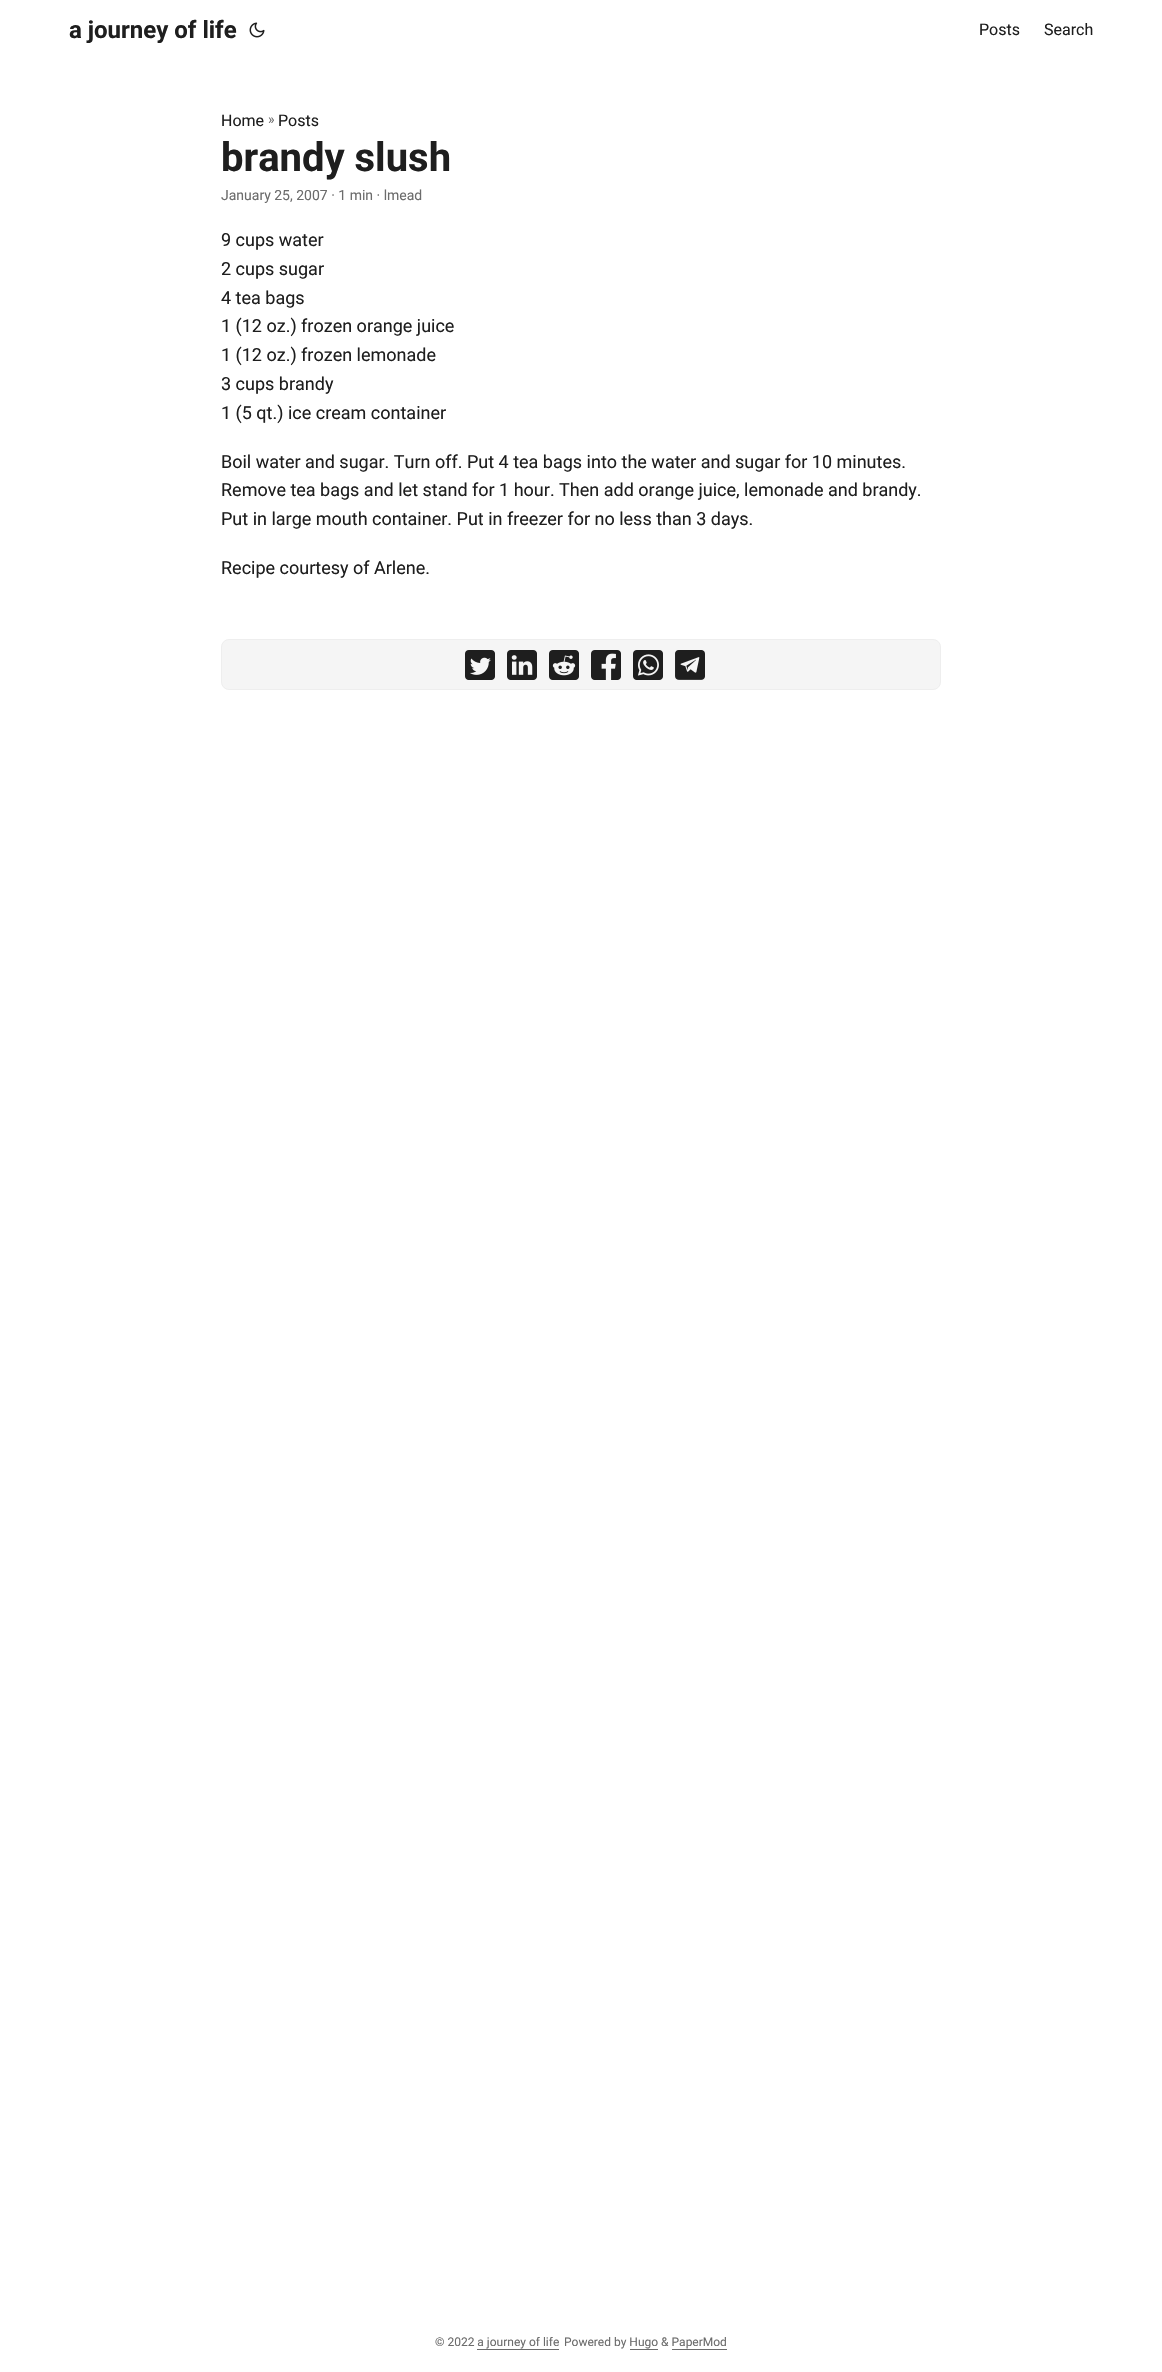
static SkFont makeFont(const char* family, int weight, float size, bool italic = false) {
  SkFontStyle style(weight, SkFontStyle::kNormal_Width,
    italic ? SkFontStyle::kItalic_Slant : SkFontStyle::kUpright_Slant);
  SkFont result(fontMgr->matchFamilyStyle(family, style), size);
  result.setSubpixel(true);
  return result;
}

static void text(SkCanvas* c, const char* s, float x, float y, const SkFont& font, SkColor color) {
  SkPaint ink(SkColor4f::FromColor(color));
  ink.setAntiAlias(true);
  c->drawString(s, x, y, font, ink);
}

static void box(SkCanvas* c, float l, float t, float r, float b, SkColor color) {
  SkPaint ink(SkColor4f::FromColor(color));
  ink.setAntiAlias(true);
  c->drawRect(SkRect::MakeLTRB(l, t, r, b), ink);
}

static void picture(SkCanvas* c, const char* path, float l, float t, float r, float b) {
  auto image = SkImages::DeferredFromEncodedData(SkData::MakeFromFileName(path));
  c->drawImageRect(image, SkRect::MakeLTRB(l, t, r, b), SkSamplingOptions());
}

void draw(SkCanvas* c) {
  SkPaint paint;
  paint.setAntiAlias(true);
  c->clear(0xffffffff);
  SkFont face1 = makeFont("Roboto", 700, 24);
  text(c, "a journey of life", 69, 38, face1, 0xff1e1e1e);
  picture(c, "img_01.png", 249, 22, 265, 38);
  SkFont face2 = makeFont("Roboto", 400, 16);
  text(c, "Posts", 979, 35, face2, 0xff1e1e1e);
  text(c, "Search", 1044, 35, face2, 0xff1e1e1e);
  text(c, "Home", 221, 126, face2, 0xff1e1e1e);
  SkFont face3 = makeFont("Roboto", 400, 14);
  text(c, "»", 268, 124, face3, 0xff6c6c6c);
  text(c, "Posts", 278, 126, face2, 0xff1e1e1e);
  SkFont face4 = makeFont("Roboto", 700, 40);
  text(c, "brandy slush", 221, 171, face4, 0xff1e1e1e);
  text(c, "January 25, 2007 · 1 min · lmead", 221, 200, face3, 0xff6c6c6c);
  SkFont face5 = makeFont("Roboto", 400, 18);
  text(c, "9 cups water", 221, 246, face5, 0xff1e1e1e);
  text(c, "2 cups sugar", 221, 275, face5, 0xff1e1e1e);
  text(c, "4 tea bags", 221, 304, face5, 0xff1e1e1e);
  text(c, "1 (12 oz.) frozen orange juice", 221, 332, face5, 0xff1e1e1e);
  text(c, "1 (12 oz.) frozen lemonade", 221, 361, face5, 0xff1e1e1e);
  text(c, "3 cups brandy", 221, 390, face5, 0xff1e1e1e);
  text(c, "1 (5 qt.) ice cream container", 221, 419, face5, 0xff1e1e1e);
  text(c, "Boil water and sugar. Turn off. Put 4 tea bags into the water and sugar for 10 minutes.", 221, 468, face5, 0xff1e1e1e);
  text(c, "Remove tea bags and let stand for 1 hour. Then add orange juice, lemonade and brandy.", 221, 496, face5, 0xff1e1e1e);
  text(c, "Put in large mouth container. Put in freezer for no less than 3 days.", 221, 525, face5, 0xff1e1e1e);
  text(c, "Recipe courtesy of Arlene.", 221, 574, face5, 0xff1e1e1e);
  paint.setColor(0xfff5f5f5);
  c->drawRoundRect(SkRect::MakeLTRB(221.5f, 639.5f, 940.5f, 689.5f), 7.5f, 7.5f, paint);
  paint.setStyle(SkPaint::kStroke_Style);
  paint.setStrokeWidth(1);
  paint.setColor(0xffeeeeee);
  c->drawRoundRect(SkRect::MakeLTRB(221.5f, 639.5f, 940.5f, 689.5f), 7.5f, 7.5f, paint);
  picture(c, "img_02.png", 465, 650, 495, 680);
  picture(c, "img_03.png", 507, 650, 537, 680);
  picture(c, "img_04.png", 549, 650, 579, 680);
  picture(c, "img_05.png", 591, 650, 621, 680);
  picture(c, "img_06.png", 633, 650, 663, 680);
  picture(c, "img_07.png", 675, 650, 705, 680);
  SkFont face6 = makeFont("Roboto", 400, 12);
  text(c, "© 2022 a journey of life", 435, 2346, face6, 0xff6c6c6c);
  box(c, 477, 2349, 559, 2350, 0xff6c6c6c);
  text(c, "Powered by Hugo & PaperMod", 564, 2346, face6, 0xff6c6c6c);
  box(c, 630, 2349, 658, 2350, 0xff6c6c6c);
  box(c, 672, 2349, 727, 2350, 0xff6c6c6c);
}
